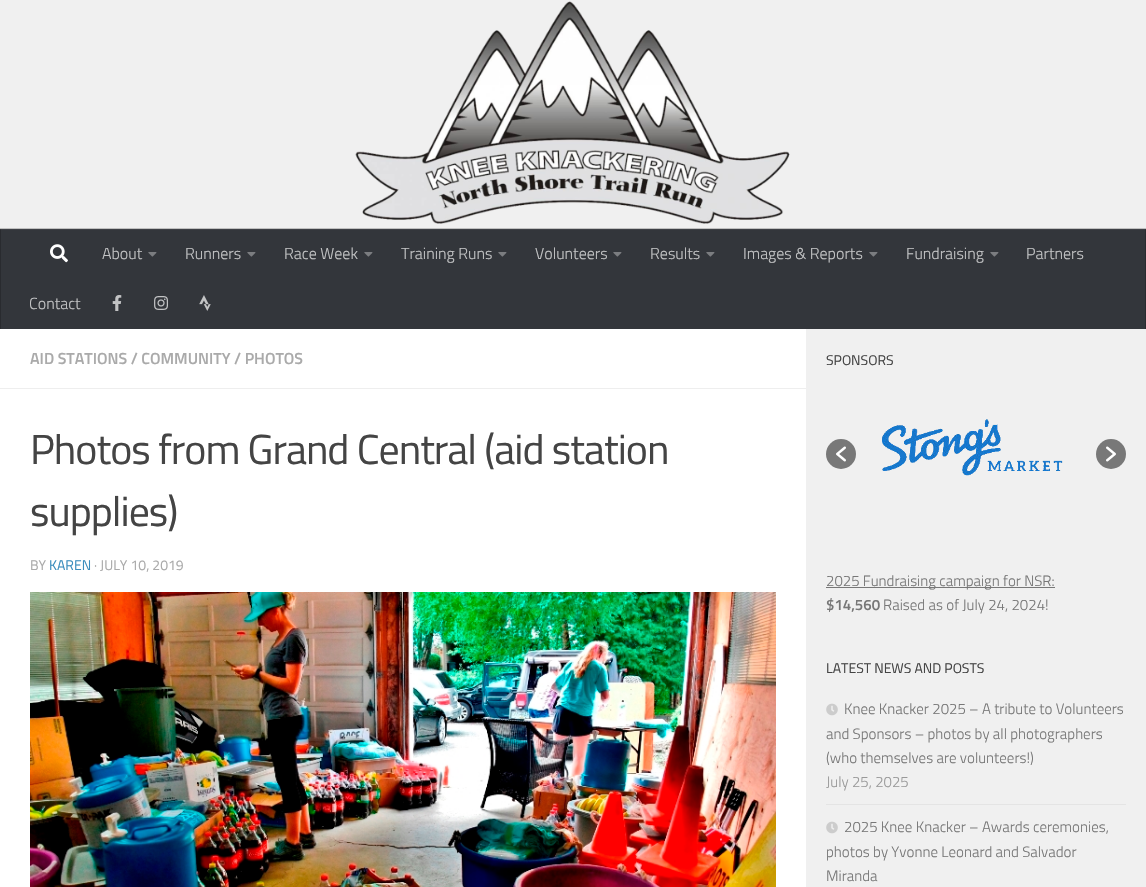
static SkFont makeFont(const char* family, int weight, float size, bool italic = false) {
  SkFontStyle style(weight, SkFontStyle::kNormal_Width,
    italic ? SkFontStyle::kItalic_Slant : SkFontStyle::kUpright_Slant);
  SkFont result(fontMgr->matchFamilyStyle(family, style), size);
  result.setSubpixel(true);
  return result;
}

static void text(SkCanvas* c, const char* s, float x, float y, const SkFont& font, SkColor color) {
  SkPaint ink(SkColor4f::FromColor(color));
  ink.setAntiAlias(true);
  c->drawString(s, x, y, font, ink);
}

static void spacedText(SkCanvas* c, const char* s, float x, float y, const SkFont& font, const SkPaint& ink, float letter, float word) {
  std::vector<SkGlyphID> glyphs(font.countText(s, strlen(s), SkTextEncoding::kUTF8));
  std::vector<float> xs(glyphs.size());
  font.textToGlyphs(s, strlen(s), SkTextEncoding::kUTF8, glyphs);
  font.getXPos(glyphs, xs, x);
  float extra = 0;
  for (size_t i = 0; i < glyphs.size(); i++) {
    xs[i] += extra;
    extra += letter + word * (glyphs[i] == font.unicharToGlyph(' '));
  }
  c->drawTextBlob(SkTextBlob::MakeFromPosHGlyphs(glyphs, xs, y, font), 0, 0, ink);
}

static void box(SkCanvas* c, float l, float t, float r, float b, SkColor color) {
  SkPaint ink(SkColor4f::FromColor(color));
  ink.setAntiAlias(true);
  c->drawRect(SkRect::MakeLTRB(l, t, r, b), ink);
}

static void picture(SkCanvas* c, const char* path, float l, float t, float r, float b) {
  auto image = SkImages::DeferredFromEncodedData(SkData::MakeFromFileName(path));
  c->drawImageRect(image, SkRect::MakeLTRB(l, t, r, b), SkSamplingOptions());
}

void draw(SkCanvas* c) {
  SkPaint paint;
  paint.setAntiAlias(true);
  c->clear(0xfff0f0f0);
  picture(c, "img_01.png", 355, 1, 790, 224);
  box(c, 0, 228, 1146, 229, 0xffc0c0c0);
  box(c, 1, 230, 1145, 329, 0xff33363b);
  box(c, 0, 229, 1146, 230, 0xff3d4045);
  box(c, 1145, 229, 1146, 329, 0xff292b2f);
  box(c, 1145, 229, 1146, 230, 0xff343639);
  box(c, 0, 229, 1, 329, 0xff292b2f);
  box(c, 0, 229, 1, 230, 0xff343639);
  picture(c, "img_02.png", 50, 244, 68, 263);
  SkFont face1 = makeFont("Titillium", 300, 16);
  text(c, "About", 102, 259, face1, 0xffc2c3c4);
  picture(c, "img_03.png", 148, 252, 157, 257);
  text(c, "Runners", 185, 259, face1, 0xffc2c3c4);
  picture(c, "img_03.png", 247, 252, 256, 257);
  text(c, "Race Week", 284, 259, face1, 0xffc2c3c4);
  picture(c, "img_03.png", 364, 252, 373, 257);
  text(c, "Training Runs", 401, 259, face1, 0xffc2c3c4);
  picture(c, "img_03.png", 498, 252, 507, 257);
  text(c, "Volunteers", 535, 259, face1, 0xffc2c3c4);
  picture(c, "img_03.png", 613, 252, 622, 257);
  text(c, "Results", 650, 259, face1, 0xffc2c3c4);
  picture(c, "img_03.png", 706, 252, 715, 257);
  text(c, "Images & Reports", 743, 259, face1, 0xffc2c3c4);
  picture(c, "img_03.png", 869, 252, 878, 257);
  text(c, "Fundraising", 906, 259, face1, 0xffc2c3c4);
  picture(c, "img_03.png", 990, 252, 999, 257);
  text(c, "Partners", 1026, 259, face1, 0xffc2c3c4);
  text(c, "Contact", 29, 309, face1, 0xffc2c3c4);
  picture(c, "img_04.png", 112, 295, 122, 311);
  picture(c, "img_05.png", 154, 296, 168, 310);
  picture(c, "img_06.png", 199, 295, 211, 311);
  box(c, 0, 329, 806, 887, 0xffffffff);
  box(c, 0, 388, 806, 389, 0xffeeeeee);
  SkFont face2 = makeFont("Titillium", 600, 16);
  text(c, "AID STATIONS / COMMUNITY / PHOTOS", 30, 364, face2, 0xffaaaaaa);
  SkFont face3 = makeFont("Titillium", 400, 41.9f);
  paint.setColor(0xff444444);
  spacedText(c, "Photos from Grand Central (aid station", 30, 464, face3, paint, -1, 0);
  spacedText(c, "supplies)", 30, 526, face3, paint, -1, 0);
  SkFont face4 = makeFont("Titillium", 400, 14);
  text(c, "BY", 30, 570, face4, 0xffaaaaaa);
  text(c, "KAREN", 49, 570, face4, 0xff3b8dbd);
  text(c, "· JULY 10, 2019", 94, 570, face4, 0xffaaaaaa);
  picture(c, "img_07.png", 30, 592, 776, 887);
  text(c, "SPONSORS", 826, 365, face4, 0xff444444);
  paint.setColor(0xff787878);
  c->drawCircle(841, 454, 15, paint);
  picture(c, "img_08.png", 836, 446, 846, 462);
  picture(c, "img_09.png", 882, 419, 1063, 476);
  c->drawCircle(1111, 454, 15, paint);
  picture(c, "img_10.png", 1106, 446, 1116, 462);
  box(c, 826, 587, 1055, 588, 0xff777777);
  SkFont face5 = makeFont("Titillium", 300, 15);
  text(c, "2025 Fundraising campaign for NSR:", 826, 586, face5, 0xff777777);
  SkFont face6 = makeFont("Titillium", 600, 15);
  text(c, "$14,560", 826, 610, face6, 0xff777777);
  text(c, "Raised as of July 24, 2024!", 883, 610, face5, 0xff777777);
  text(c, "LATEST NEWS AND POSTS", 826, 673, face4, 0xff444444);
  box(c, 826, 804, 1126, 805, 0xffe4e4e4);
  picture(c, "img_11.png", 826, 703, 838, 716);
  text(c, "Knee Knacker 2025 – A tribute to Volunteers", 844, 714, face5, 0xff777777);
  text(c, "and Sponsors – photos by all photographers", 826, 739, face5, 0xff777777);
  text(c, "(who themselves are volunteers!)", 826, 763, face5, 0xff777777);
  text(c, "July 25, 2025", 826, 787, face5, 0xff999999);
  picture(c, "img_11.png", 826, 821, 838, 834);
  text(c, "2025 Knee Knacker – Awards ceremonies,", 844, 832, face5, 0xff777777);
  text(c, "photos by Yvonne Leonard and Salvador", 826, 857, face5, 0xff777777);
  text(c, "Miranda", 826, 881, face5, 0xff777777);
}
